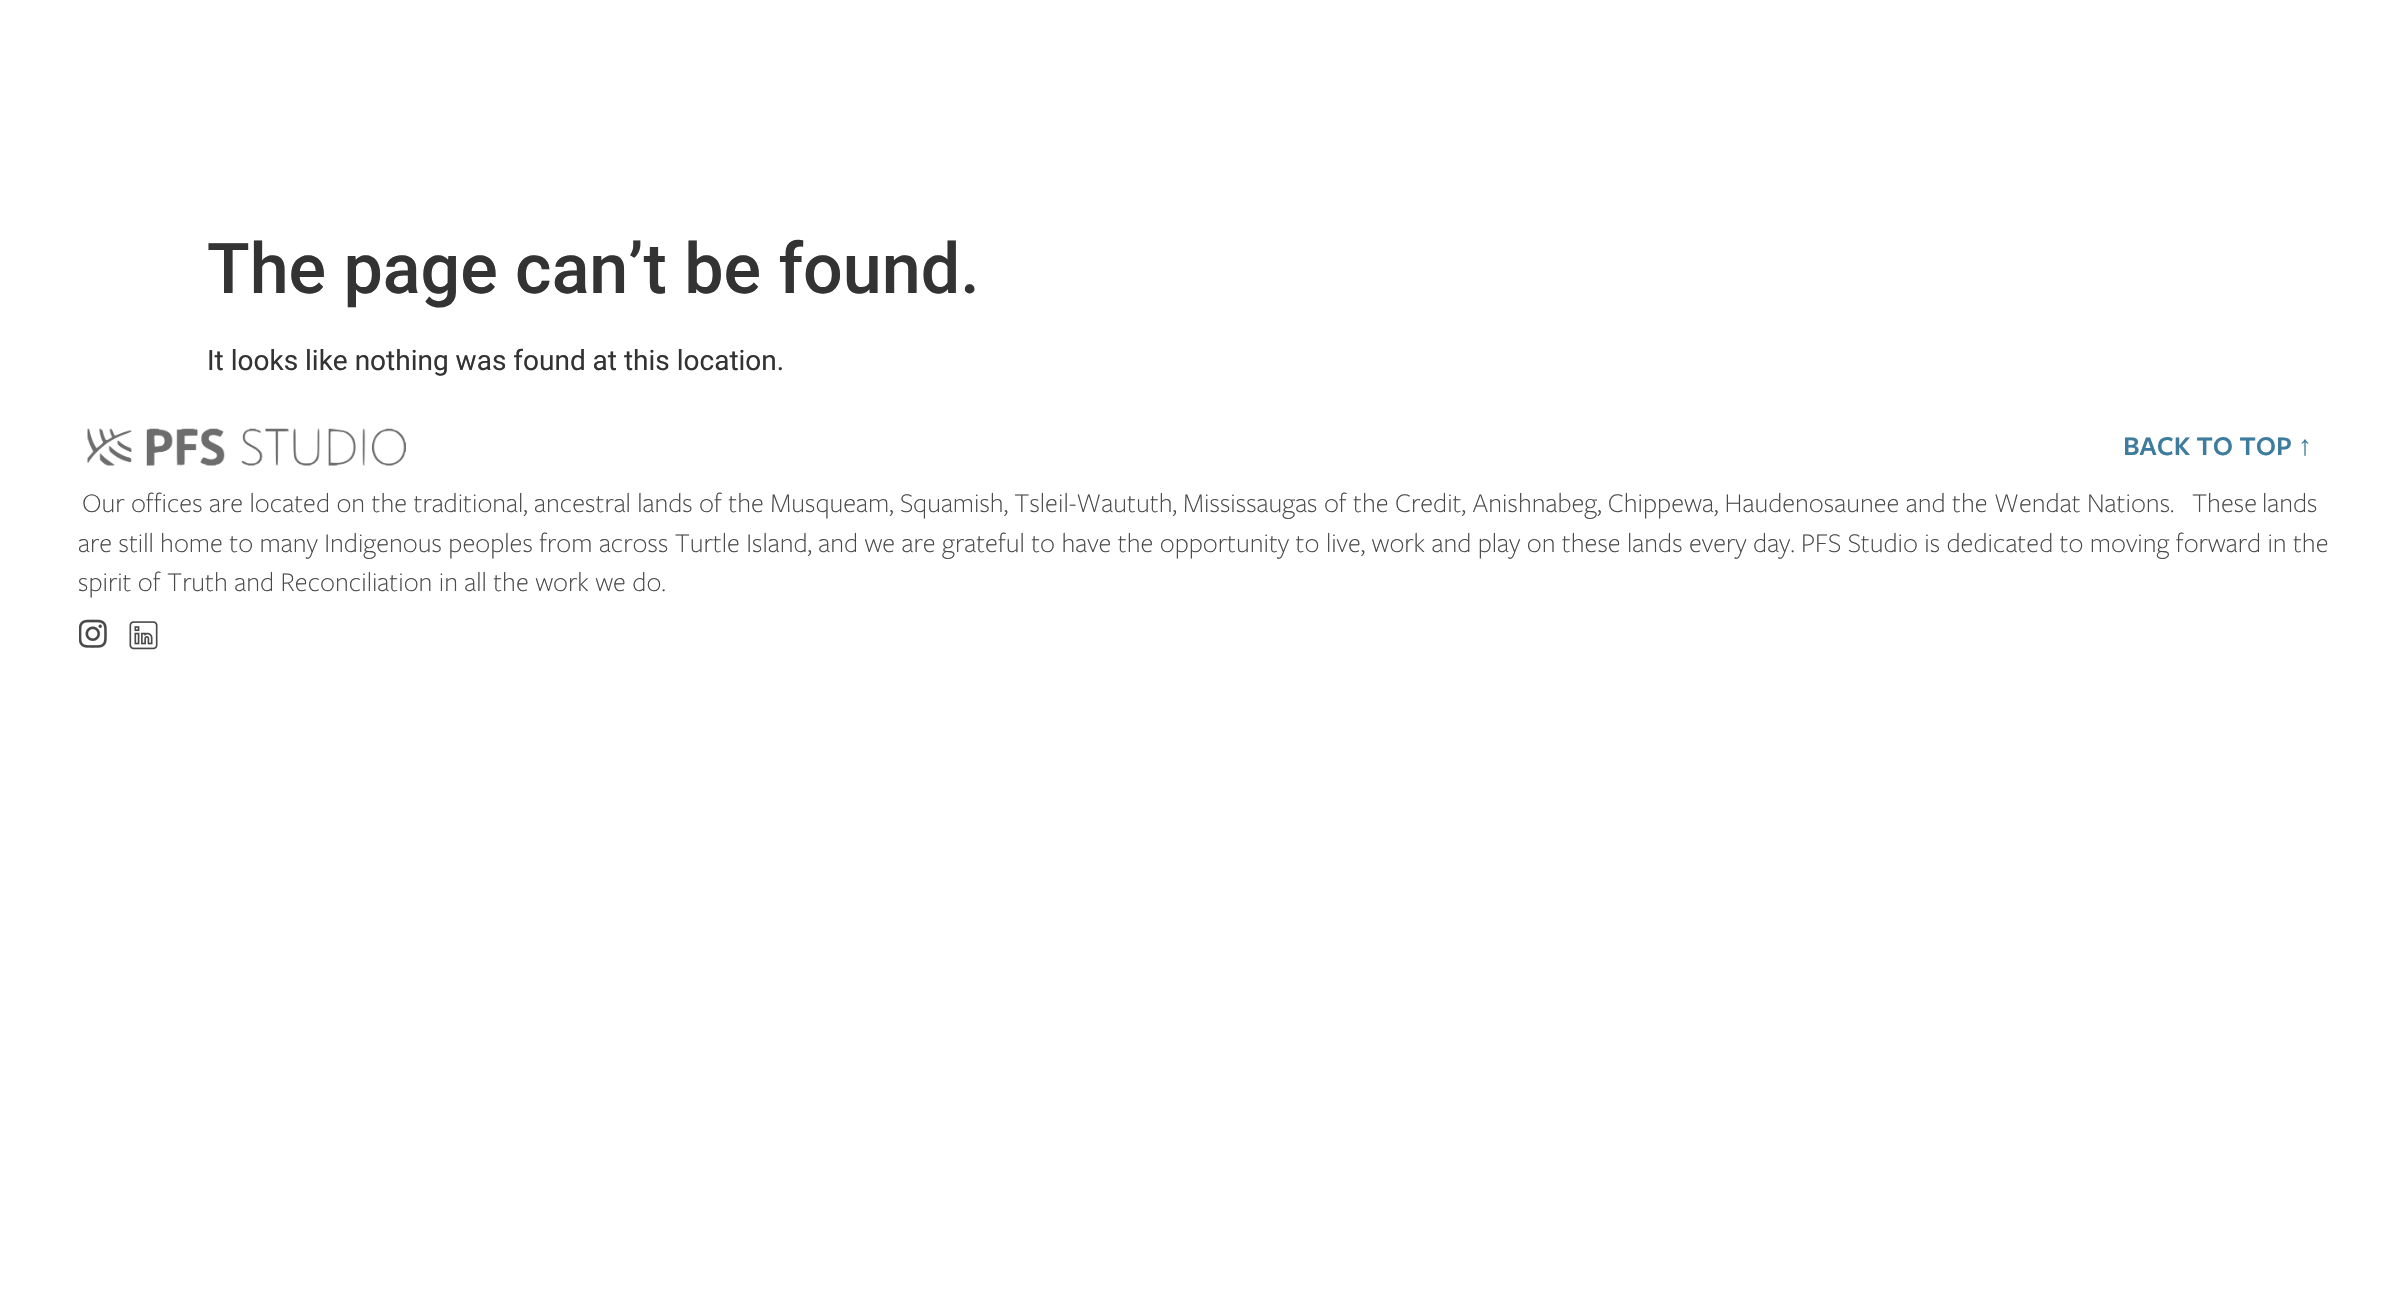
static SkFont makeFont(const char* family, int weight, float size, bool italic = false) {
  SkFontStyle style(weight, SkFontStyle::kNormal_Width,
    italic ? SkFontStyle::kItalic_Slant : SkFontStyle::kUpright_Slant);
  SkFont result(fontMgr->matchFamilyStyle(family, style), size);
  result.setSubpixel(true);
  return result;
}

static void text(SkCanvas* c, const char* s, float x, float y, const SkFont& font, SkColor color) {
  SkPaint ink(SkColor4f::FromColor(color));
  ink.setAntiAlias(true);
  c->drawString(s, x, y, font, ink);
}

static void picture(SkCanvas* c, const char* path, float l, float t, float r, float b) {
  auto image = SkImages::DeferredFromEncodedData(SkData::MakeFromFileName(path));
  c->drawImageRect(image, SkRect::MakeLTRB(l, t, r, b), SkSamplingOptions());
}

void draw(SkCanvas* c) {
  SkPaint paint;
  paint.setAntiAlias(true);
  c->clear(0xffffffff);
  SkFont face1 = makeFont("Roboto", 500, 70);
  text(c, "The page can’t be found.", 207, 293, face1, 0xff333333);
  SkFont face2 = makeFont("Roboto", 400, 28);
  text(c, "It looks like nothing was found at this location.", 207, 370, face2, 0xff333333);
  picture(c, "img_01.png", 87, 428, 406, 466);
  SkFont face3 = makeFont("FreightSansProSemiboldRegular", 600, 28);
  text(c, "BACK TO TOP", 2123, 455, face3, 0xff3e7c9e);
  SkFont face4 = makeFont("Liberation Sans", 400, 28);
  text(c, "↑", 2298, 455, face4, 0xff3e7c9e);
  SkFont face5 = makeFont("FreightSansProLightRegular", 300, 28);
  text(c, "Our offices are located on the traditional, ancestral lands of the Musqueam, Squamish, Tsleil-Waututh, Mississaugas of the Credit, Anishnabeg, Chippewa, Haudenosaunee and the Wendat Nations.", 82, 512, face5, 0xff4a494a);
  text(c, "These", 2192, 512, face5, 0xff4a494a);
  text(c, "lands", 2262, 512, face5, 0xff4a494a);
  text(c, "are still home to many Indigenous peoples from across Turtle Island, and we are grateful to have the opportunity to live, work and play on these lands every day. PFS Studio is dedicated to moving forward in the", 78, 552, face5, 0xff4a494a);
  text(c, "spirit of Truth and Reconciliation in all the work we do.", 78, 591, face5, 0xff4a494a);
  picture(c, "img_02.png", 79, 619, 107, 648);
  picture(c, "img_03.png", 129, 621, 158, 650);
}
